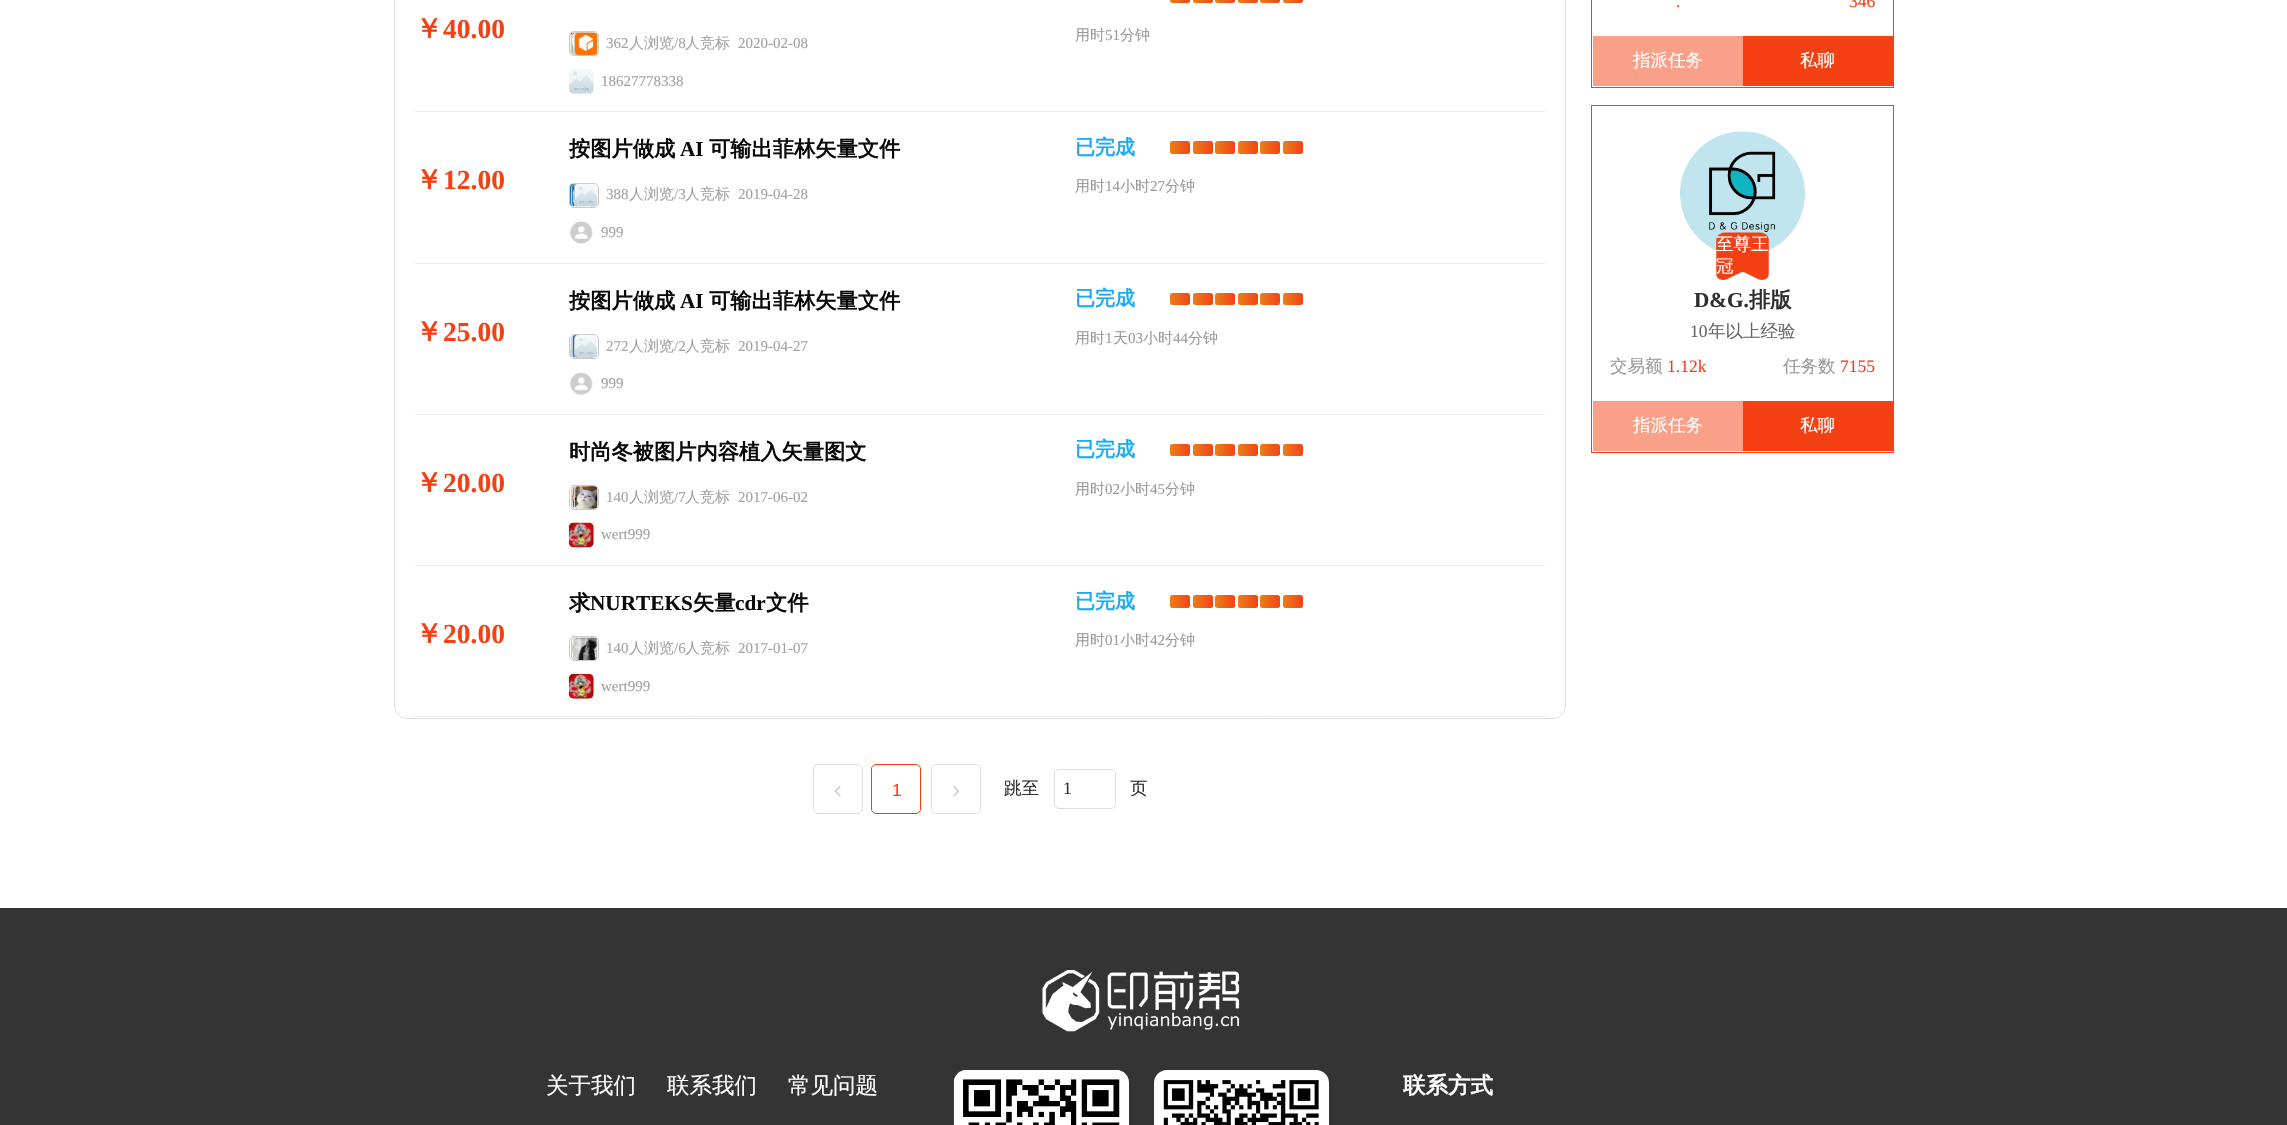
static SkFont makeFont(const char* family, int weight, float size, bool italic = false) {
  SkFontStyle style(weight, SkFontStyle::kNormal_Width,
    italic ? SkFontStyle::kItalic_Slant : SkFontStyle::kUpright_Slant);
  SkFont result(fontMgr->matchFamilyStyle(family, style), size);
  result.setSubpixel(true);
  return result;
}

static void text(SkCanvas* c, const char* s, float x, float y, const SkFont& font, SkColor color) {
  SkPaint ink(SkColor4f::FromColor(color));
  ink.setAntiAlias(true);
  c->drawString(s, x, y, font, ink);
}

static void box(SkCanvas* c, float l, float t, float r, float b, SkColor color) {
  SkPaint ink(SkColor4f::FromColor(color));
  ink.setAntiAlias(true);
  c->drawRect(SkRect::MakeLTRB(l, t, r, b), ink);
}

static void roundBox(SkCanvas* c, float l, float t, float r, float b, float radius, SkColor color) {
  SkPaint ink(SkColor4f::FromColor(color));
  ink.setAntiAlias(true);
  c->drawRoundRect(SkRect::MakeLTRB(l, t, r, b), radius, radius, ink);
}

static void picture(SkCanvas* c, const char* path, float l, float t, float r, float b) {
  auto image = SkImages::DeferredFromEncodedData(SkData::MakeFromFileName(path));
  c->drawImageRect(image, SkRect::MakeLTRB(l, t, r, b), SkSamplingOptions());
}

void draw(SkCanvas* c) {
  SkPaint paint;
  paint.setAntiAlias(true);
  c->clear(0xffffffff);
  paint.setStyle(SkPaint::kStroke_Style);
  paint.setStrokeWidth(1);
  paint.setColor(0xffdddddd);
  c->drawRoundRect(SkRect::MakeLTRB(394.5f, -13.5f, 1565.5f, 718.5f), 12.5f, 12.5f, paint);
  box(c, 415, 111, 1545, 112, 0xffececec);
  SkFont face1 = makeFont("WenQuanYi Zen Hei", 700, 27.5f);
  text(c, "￥", 415, 38, face1, 0xfff54013);
  SkFont face2 = makeFont("Liberation Serif", 700, 27.5f);
  text(c, "40.00", 443, 38, face2, 0xfff54013);
  paint.setColor(0xffcccccc);
  c->drawRoundRect(SkRect::MakeLTRB(569.5f, 31.5f, 593.5f, 55.5f), 4.5f, 4.5f, paint);
  picture(c, "img_01.png", 570, 32, 591, 55);
  c->drawRoundRect(SkRect::MakeLTRB(571.5f, 31.5f, 595.5f, 55.5f), 4.5f, 4.5f, paint);
  picture(c, "img_02.png", 572, 32, 593, 55);
  c->drawRoundRect(SkRect::MakeLTRB(574.5f, 31.5f, 598.5f, 55.5f), 4.5f, 4.5f, paint);
  picture(c, "img_03.png", 575, 32, 598, 55);
  SkFont face3 = makeFont("Liberation Serif", 400, 15);
  text(c, "362", 606, 48, face3, 0xffa2a2a2);
  SkFont face4 = makeFont("WenQuanYi Zen Hei", 500, 15);
  text(c, "人浏览", 629, 48, face4, 0xffa2a2a2);
  text(c, "/8", 674, 48, face3, 0xffa2a2a2);
  text(c, "人竞标", 685, 48, face4, 0xffa2a2a2);
  text(c, "2020-02-08", 738, 48, face3, 0xffa2a2a2);
  picture(c, "img_04.png", 569, 69, 594, 94);
  text(c, "18627778338", 601, 86, face3, 0xffa2a2a2);
  paint.setStyle(SkPaint::kFill_Style);
  {
    const SkColor colors[] = {0xfff54218, 0xffe98017};
    const float stops[] = {0, 1};
    const SkPoint ends[] = {{1190, -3.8f}, {1170, -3.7f}};
    paint.setShader(SkGradientShader::MakeLinear(ends, colors, stops, 2, SkTileMode::kClamp));
    paint.setAlpha(255);
  }
  c->drawRoundRect(SkRect::MakeLTRB(1170, -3, 1190, 3), 2.5f, 2.5f, paint);
  {
    const SkColor colors[] = {0xfff54218, 0xffe98017};
    const float stops[] = {0, 1};
    const SkPoint ends[] = {{1213, -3.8f}, {1193, -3.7f}};
    paint.setShader(SkGradientShader::MakeLinear(ends, colors, stops, 2, SkTileMode::kClamp));
    paint.setAlpha(255);
  }
  c->drawRoundRect(SkRect::MakeLTRB(1193, -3, 1213, 3), 2.5f, 2.5f, paint);
  {
    const SkColor colors[] = {0xfff54218, 0xffe98017};
    const float stops[] = {0, 1};
    const SkPoint ends[] = {{1235, -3.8f}, {1215, -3.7f}};
    paint.setShader(SkGradientShader::MakeLinear(ends, colors, stops, 2, SkTileMode::kClamp));
    paint.setAlpha(255);
  }
  c->drawRoundRect(SkRect::MakeLTRB(1215, -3, 1235, 3), 2.5f, 2.5f, paint);
  {
    const SkColor colors[] = {0xfff54218, 0xffe98017};
    const float stops[] = {0, 1};
    const SkPoint ends[] = {{1258, -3.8f}, {1238, -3.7f}};
    paint.setShader(SkGradientShader::MakeLinear(ends, colors, stops, 2, SkTileMode::kClamp));
    paint.setAlpha(255);
  }
  c->drawRoundRect(SkRect::MakeLTRB(1238, -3, 1258, 3), 2.5f, 2.5f, paint);
  {
    const SkColor colors[] = {0xfff54218, 0xffe98017};
    const float stops[] = {0, 1};
    const SkPoint ends[] = {{1280, -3.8f}, {1260, -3.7f}};
    paint.setShader(SkGradientShader::MakeLinear(ends, colors, stops, 2, SkTileMode::kClamp));
    paint.setAlpha(255);
  }
  c->drawRoundRect(SkRect::MakeLTRB(1260, -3, 1280, 3), 2.5f, 2.5f, paint);
  {
    const SkColor colors[] = {0xfff54218, 0xffe98017};
    const float stops[] = {0, 1};
    const SkPoint ends[] = {{1303, -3.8f}, {1283, -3.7f}};
    paint.setShader(SkGradientShader::MakeLinear(ends, colors, stops, 2, SkTileMode::kClamp));
    paint.setAlpha(255);
  }
  c->drawRoundRect(SkRect::MakeLTRB(1283, -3, 1303, 3), 2.5f, 2.5f, paint);
  text(c, "用时", 1075, 40, face4, 0xff999999);
  text(c, "51", 1105, 40, face3, 0xff999999);
  text(c, "分钟", 1120, 40, face4, 0xff999999);
  box(c, 415, 263, 1545, 264, 0xffececec);
  text(c, "￥", 415, 189, face1, 0xfff54013);
  text(c, "12.00", 443, 189, face2, 0xfff54013);
  SkFont face5 = makeFont("WenQuanYi Zen Hei", 700, 21.25f);
  text(c, "按图片做成", 569, 156, face5, 0xff0a0a0a);
  SkFont face6 = makeFont("Liberation Serif", 700, 21.25f);
  text(c, "AI", 680, 156, face6, 0xff0a0a0a);
  text(c, "可输出菲林矢量文件", 709, 156, face5, 0xff0a0a0a);
  paint.setStyle(SkPaint::kStroke_Style);
  paint.setShader(nullptr);
  paint.setColor(0xffcccccc);
  c->drawRoundRect(SkRect::MakeLTRB(569.5f, 183.5f, 593.5f, 207.5f), 4.5f, 4.5f, paint);
  picture(c, "img_05.png", 570, 183, 590, 207);
  c->drawRoundRect(SkRect::MakeLTRB(571.5f, 183.5f, 595.5f, 207.5f), 4.5f, 4.5f, paint);
  picture(c, "img_06.png", 572, 183, 592, 207);
  c->drawRoundRect(SkRect::MakeLTRB(574.5f, 183.5f, 598.5f, 207.5f), 4.5f, 4.5f, paint);
  picture(c, "img_07.png", 575, 184, 598, 206);
  text(c, "388", 606, 199, face3, 0xffa2a2a2);
  text(c, "人浏览", 629, 199, face4, 0xffa2a2a2);
  text(c, "/3", 674, 199, face3, 0xffa2a2a2);
  text(c, "人竞标", 685, 199, face4, 0xffa2a2a2);
  text(c, "2019-04-28", 738, 199, face3, 0xffa2a2a2);
  picture(c, "img_08.png", 569, 221, 593, 244);
  text(c, "999", 601, 237, face3, 0xffa2a2a2);
  SkFont face7 = makeFont("WenQuanYi Zen Hei", 700, 20);
  text(c, "已完成", 1075, 154, face7, 0xff19acf5);
  paint.setStyle(SkPaint::kFill_Style);
  {
    const SkColor colors[] = {0xfff54218, 0xffe98017};
    const float stops[] = {0, 1};
    const SkPoint ends[] = {{1190, 148}, {1170, 148}};
    paint.setShader(SkGradientShader::MakeLinear(ends, colors, stops, 2, SkTileMode::kClamp));
    paint.setAlpha(255);
  }
  c->drawRoundRect(SkRect::MakeLTRB(1170, 141, 1190, 154), 2.5f, 2.5f, paint);
  {
    const SkColor colors[] = {0xfff54218, 0xffe98017};
    const float stops[] = {0, 1};
    const SkPoint ends[] = {{1213, 148}, {1193, 148}};
    paint.setShader(SkGradientShader::MakeLinear(ends, colors, stops, 2, SkTileMode::kClamp));
    paint.setAlpha(255);
  }
  c->drawRoundRect(SkRect::MakeLTRB(1193, 141, 1213, 154), 2.5f, 2.5f, paint);
  {
    const SkColor colors[] = {0xfff54218, 0xffe98017};
    const float stops[] = {0, 1};
    const SkPoint ends[] = {{1235, 148}, {1215, 148}};
    paint.setShader(SkGradientShader::MakeLinear(ends, colors, stops, 2, SkTileMode::kClamp));
    paint.setAlpha(255);
  }
  c->drawRoundRect(SkRect::MakeLTRB(1215, 141, 1235, 154), 2.5f, 2.5f, paint);
  {
    const SkColor colors[] = {0xfff54218, 0xffe98017};
    const float stops[] = {0, 1};
    const SkPoint ends[] = {{1258, 148}, {1238, 148}};
    paint.setShader(SkGradientShader::MakeLinear(ends, colors, stops, 2, SkTileMode::kClamp));
    paint.setAlpha(255);
  }
  c->drawRoundRect(SkRect::MakeLTRB(1238, 141, 1258, 154), 2.5f, 2.5f, paint);
  {
    const SkColor colors[] = {0xfff54218, 0xffe98017};
    const float stops[] = {0, 1};
    const SkPoint ends[] = {{1280, 148}, {1260, 148}};
    paint.setShader(SkGradientShader::MakeLinear(ends, colors, stops, 2, SkTileMode::kClamp));
    paint.setAlpha(255);
  }
  c->drawRoundRect(SkRect::MakeLTRB(1260, 141, 1280, 154), 2.5f, 2.5f, paint);
  {
    const SkColor colors[] = {0xfff54218, 0xffe98017};
    const float stops[] = {0, 1};
    const SkPoint ends[] = {{1303, 148}, {1283, 148}};
    paint.setShader(SkGradientShader::MakeLinear(ends, colors, stops, 2, SkTileMode::kClamp));
    paint.setAlpha(255);
  }
  c->drawRoundRect(SkRect::MakeLTRB(1283, 141, 1303, 154), 2.5f, 2.5f, paint);
  text(c, "用时", 1075, 191, face4, 0xff999999);
  text(c, "14", 1105, 191, face3, 0xff999999);
  text(c, "小时", 1120, 191, face4, 0xff999999);
  text(c, "27", 1150, 191, face3, 0xff999999);
  text(c, "分钟", 1165, 191, face4, 0xff999999);
  box(c, 415, 414, 1545, 415, 0xffececec);
  text(c, "￥", 415, 341, face1, 0xfff54013);
  text(c, "25.00", 443, 341, face2, 0xfff54013);
  text(c, "按图片做成", 569, 308, face5, 0xff0a0a0a);
  text(c, "AI", 680, 308, face6, 0xff0a0a0a);
  text(c, "可输出菲林矢量文件", 709, 308, face5, 0xff0a0a0a);
  paint.setStyle(SkPaint::kStroke_Style);
  paint.setShader(nullptr);
  paint.setColor(0xffcccccc);
  c->drawRoundRect(SkRect::MakeLTRB(569.5f, 334.5f, 593.5f, 358.5f), 4.5f, 4.5f, paint);
  picture(c, "img_09.png", 570, 335, 591, 358);
  c->drawRoundRect(SkRect::MakeLTRB(571.5f, 334.5f, 595.5f, 358.5f), 4.5f, 4.5f, paint);
  picture(c, "img_10.png", 572, 335, 593, 358);
  c->drawRoundRect(SkRect::MakeLTRB(574.5f, 334.5f, 598.5f, 358.5f), 4.5f, 4.5f, paint);
  picture(c, "img_11.png", 575, 335, 598, 358);
  text(c, "272", 606, 351, face3, 0xffa2a2a2);
  text(c, "人浏览", 629, 351, face4, 0xffa2a2a2);
  text(c, "/2", 674, 351, face3, 0xffa2a2a2);
  text(c, "人竞标", 685, 351, face4, 0xffa2a2a2);
  text(c, "2019-04-27", 738, 351, face3, 0xffa2a2a2);
  picture(c, "img_12.png", 569, 372, 593, 396);
  text(c, "999", 601, 388, face3, 0xffa2a2a2);
  text(c, "已完成", 1075, 305, face7, 0xff19acf5);
  paint.setStyle(SkPaint::kFill_Style);
  {
    const SkColor colors[] = {0xfff54218, 0xffe98017};
    const float stops[] = {0, 1};
    const SkPoint ends[] = {{1190, 299}, {1170, 299}};
    paint.setShader(SkGradientShader::MakeLinear(ends, colors, stops, 2, SkTileMode::kClamp));
    paint.setAlpha(255);
  }
  c->drawRoundRect(SkRect::MakeLTRB(1170, 293, 1190, 305), 2.5f, 2.5f, paint);
  {
    const SkColor colors[] = {0xfff54218, 0xffe98017};
    const float stops[] = {0, 1};
    const SkPoint ends[] = {{1213, 299}, {1193, 299}};
    paint.setShader(SkGradientShader::MakeLinear(ends, colors, stops, 2, SkTileMode::kClamp));
    paint.setAlpha(255);
  }
  c->drawRoundRect(SkRect::MakeLTRB(1193, 293, 1213, 305), 2.5f, 2.5f, paint);
  {
    const SkColor colors[] = {0xfff54218, 0xffe98017};
    const float stops[] = {0, 1};
    const SkPoint ends[] = {{1235, 299}, {1215, 299}};
    paint.setShader(SkGradientShader::MakeLinear(ends, colors, stops, 2, SkTileMode::kClamp));
    paint.setAlpha(255);
  }
  c->drawRoundRect(SkRect::MakeLTRB(1215, 293, 1235, 305), 2.5f, 2.5f, paint);
  {
    const SkColor colors[] = {0xfff54218, 0xffe98017};
    const float stops[] = {0, 1};
    const SkPoint ends[] = {{1258, 299}, {1238, 299}};
    paint.setShader(SkGradientShader::MakeLinear(ends, colors, stops, 2, SkTileMode::kClamp));
    paint.setAlpha(255);
  }
  c->drawRoundRect(SkRect::MakeLTRB(1238, 293, 1258, 305), 2.5f, 2.5f, paint);
  {
    const SkColor colors[] = {0xfff54218, 0xffe98017};
    const float stops[] = {0, 1};
    const SkPoint ends[] = {{1280, 299}, {1260, 299}};
    paint.setShader(SkGradientShader::MakeLinear(ends, colors, stops, 2, SkTileMode::kClamp));
    paint.setAlpha(255);
  }
  c->drawRoundRect(SkRect::MakeLTRB(1260, 293, 1280, 305), 2.5f, 2.5f, paint);
  {
    const SkColor colors[] = {0xfff54218, 0xffe98017};
    const float stops[] = {0, 1};
    const SkPoint ends[] = {{1303, 299}, {1283, 299}};
    paint.setShader(SkGradientShader::MakeLinear(ends, colors, stops, 2, SkTileMode::kClamp));
    paint.setAlpha(255);
  }
  c->drawRoundRect(SkRect::MakeLTRB(1283, 293, 1303, 305), 2.5f, 2.5f, paint);
  text(c, "用时", 1075, 343, face4, 0xff999999);
  text(c, "1", 1105, 343, face3, 0xff999999);
  text(c, "天", 1113, 343, face4, 0xff999999);
  text(c, "03", 1128, 343, face3, 0xff999999);
  text(c, "小时", 1143, 343, face4, 0xff999999);
  text(c, "44", 1173, 343, face3, 0xff999999);
  text(c, "分钟", 1188, 343, face4, 0xff999999);
  box(c, 415, 565, 1545, 566, 0xffececec);
  text(c, "￥", 415, 492, face1, 0xfff54013);
  text(c, "20.00", 443, 492, face2, 0xfff54013);
  text(c, "时尚冬被图片内容植入矢量图文", 569, 459, face5, 0xff0a0a0a);
  paint.setStyle(SkPaint::kStroke_Style);
  paint.setShader(nullptr);
  paint.setColor(0xffcccccc);
  c->drawRoundRect(SkRect::MakeLTRB(569.5f, 485.5f, 593.5f, 509.5f), 4.5f, 4.5f, paint);
  picture(c, "img_13.png", 570, 486, 591, 509);
  c->drawRoundRect(SkRect::MakeLTRB(571.5f, 485.5f, 595.5f, 509.5f), 4.5f, 4.5f, paint);
  picture(c, "img_14.png", 572, 486, 594, 509);
  c->drawRoundRect(SkRect::MakeLTRB(574.5f, 485.5f, 598.5f, 509.5f), 4.5f, 4.5f, paint);
  picture(c, "img_15.png", 575, 486, 598, 509);
  text(c, "140", 606, 502, face3, 0xffa2a2a2);
  text(c, "人浏览", 629, 502, face4, 0xffa2a2a2);
  text(c, "/7", 674, 502, face3, 0xffa2a2a2);
  text(c, "人竞标", 685, 502, face4, 0xffa2a2a2);
  text(c, "2017-06-02", 738, 502, face3, 0xffa2a2a2);
  picture(c, "img_16.png", 568, 522, 594, 548);
  text(c, "wert999", 601, 539, face3, 0xffa2a2a2);
  text(c, "已完成", 1075, 456, face7, 0xff19acf5);
  paint.setStyle(SkPaint::kFill_Style);
  {
    const SkColor colors[] = {0xfff54218, 0xffe98017};
    const float stops[] = {0, 1};
    const SkPoint ends[] = {{1190, 450}, {1170, 450}};
    paint.setShader(SkGradientShader::MakeLinear(ends, colors, stops, 2, SkTileMode::kClamp));
    paint.setAlpha(255);
  }
  c->drawRoundRect(SkRect::MakeLTRB(1170, 444, 1190, 456), 2.5f, 2.5f, paint);
  {
    const SkColor colors[] = {0xfff54218, 0xffe98017};
    const float stops[] = {0, 1};
    const SkPoint ends[] = {{1213, 450}, {1193, 450}};
    paint.setShader(SkGradientShader::MakeLinear(ends, colors, stops, 2, SkTileMode::kClamp));
    paint.setAlpha(255);
  }
  c->drawRoundRect(SkRect::MakeLTRB(1193, 444, 1213, 456), 2.5f, 2.5f, paint);
  {
    const SkColor colors[] = {0xfff54218, 0xffe98017};
    const float stops[] = {0, 1};
    const SkPoint ends[] = {{1235, 450}, {1215, 450}};
    paint.setShader(SkGradientShader::MakeLinear(ends, colors, stops, 2, SkTileMode::kClamp));
    paint.setAlpha(255);
  }
  c->drawRoundRect(SkRect::MakeLTRB(1215, 444, 1235, 456), 2.5f, 2.5f, paint);
  {
    const SkColor colors[] = {0xfff54218, 0xffe98017};
    const float stops[] = {0, 1};
    const SkPoint ends[] = {{1258, 450}, {1238, 450}};
    paint.setShader(SkGradientShader::MakeLinear(ends, colors, stops, 2, SkTileMode::kClamp));
    paint.setAlpha(255);
  }
  c->drawRoundRect(SkRect::MakeLTRB(1238, 444, 1258, 456), 2.5f, 2.5f, paint);
  {
    const SkColor colors[] = {0xfff54218, 0xffe98017};
    const float stops[] = {0, 1};
    const SkPoint ends[] = {{1280, 450}, {1260, 450}};
    paint.setShader(SkGradientShader::MakeLinear(ends, colors, stops, 2, SkTileMode::kClamp));
    paint.setAlpha(255);
  }
  c->drawRoundRect(SkRect::MakeLTRB(1260, 444, 1280, 456), 2.5f, 2.5f, paint);
  {
    const SkColor colors[] = {0xfff54218, 0xffe98017};
    const float stops[] = {0, 1};
    const SkPoint ends[] = {{1303, 450}, {1283, 450}};
    paint.setShader(SkGradientShader::MakeLinear(ends, colors, stops, 2, SkTileMode::kClamp));
    paint.setAlpha(255);
  }
  c->drawRoundRect(SkRect::MakeLTRB(1283, 444, 1303, 456), 2.5f, 2.5f, paint);
  text(c, "用时", 1075, 494, face4, 0xff999999);
  text(c, "02", 1105, 494, face3, 0xff999999);
  text(c, "小时", 1120, 494, face4, 0xff999999);
  text(c, "45", 1150, 494, face3, 0xff999999);
  text(c, "分钟", 1165, 494, face4, 0xff999999);
  box(c, 415, 716, 1545, 717, 0xffececec);
  text(c, "￥", 415, 643, face1, 0xfff54013);
  text(c, "20.00", 443, 643, face2, 0xfff54013);
  text(c, "求", 569, 610, face5, 0xff0a0a0a);
  text(c, "NURTEKS", 590, 610, face6, 0xff0a0a0a);
  text(c, "矢量", 693, 610, face5, 0xff0a0a0a);
  text(c, "cdr", 735, 610, face6, 0xff0a0a0a);
  text(c, "文件", 766, 610, face5, 0xff0a0a0a);
  paint.setStyle(SkPaint::kStroke_Style);
  paint.setShader(nullptr);
  paint.setColor(0xffcccccc);
  c->drawRoundRect(SkRect::MakeLTRB(569.5f, 636.5f, 593.5f, 660.5f), 4.5f, 4.5f, paint);
  picture(c, "img_17.png", 572, 643, 573, 655);
  c->drawRoundRect(SkRect::MakeLTRB(571.5f, 636.5f, 595.5f, 660.5f), 4.5f, 4.5f, paint);
  picture(c, "img_18.png", 572, 637, 593, 660);
  c->drawRoundRect(SkRect::MakeLTRB(574.5f, 636.5f, 598.5f, 660.5f), 4.5f, 4.5f, paint);
  picture(c, "img_19.png", 575, 637, 598, 660);
  text(c, "140", 606, 653, face3, 0xffa2a2a2);
  text(c, "人浏览", 629, 653, face4, 0xffa2a2a2);
  text(c, "/6", 674, 653, face3, 0xffa2a2a2);
  text(c, "人竞标", 685, 653, face4, 0xffa2a2a2);
  text(c, "2017-01-07", 738, 653, face3, 0xffa2a2a2);
  picture(c, "img_20.png", 568, 673, 594, 699);
  text(c, "wert999", 601, 691, face3, 0xffa2a2a2);
  text(c, "已完成", 1075, 608, face7, 0xff19acf5);
  paint.setStyle(SkPaint::kFill_Style);
  {
    const SkColor colors[] = {0xfff54218, 0xffe98017};
    const float stops[] = {0, 1};
    const SkPoint ends[] = {{1190, 601}, {1170, 601}};
    paint.setShader(SkGradientShader::MakeLinear(ends, colors, stops, 2, SkTileMode::kClamp));
    paint.setAlpha(255);
  }
  c->drawRoundRect(SkRect::MakeLTRB(1170, 595, 1190, 608), 2.5f, 2.5f, paint);
  {
    const SkColor colors[] = {0xfff54218, 0xffe98017};
    const float stops[] = {0, 1};
    const SkPoint ends[] = {{1213, 601}, {1193, 601}};
    paint.setShader(SkGradientShader::MakeLinear(ends, colors, stops, 2, SkTileMode::kClamp));
    paint.setAlpha(255);
  }
  c->drawRoundRect(SkRect::MakeLTRB(1193, 595, 1213, 608), 2.5f, 2.5f, paint);
  {
    const SkColor colors[] = {0xfff54218, 0xffe98017};
    const float stops[] = {0, 1};
    const SkPoint ends[] = {{1235, 601}, {1215, 601}};
    paint.setShader(SkGradientShader::MakeLinear(ends, colors, stops, 2, SkTileMode::kClamp));
    paint.setAlpha(255);
  }
  c->drawRoundRect(SkRect::MakeLTRB(1215, 595, 1235, 608), 2.5f, 2.5f, paint);
  {
    const SkColor colors[] = {0xfff54218, 0xffe98017};
    const float stops[] = {0, 1};
    const SkPoint ends[] = {{1258, 601}, {1238, 601}};
    paint.setShader(SkGradientShader::MakeLinear(ends, colors, stops, 2, SkTileMode::kClamp));
    paint.setAlpha(255);
  }
  c->drawRoundRect(SkRect::MakeLTRB(1238, 595, 1258, 608), 2.5f, 2.5f, paint);
  {
    const SkColor colors[] = {0xfff54218, 0xffe98017};
    const float stops[] = {0, 1};
    const SkPoint ends[] = {{1280, 601}, {1260, 601}};
    paint.setShader(SkGradientShader::MakeLinear(ends, colors, stops, 2, SkTileMode::kClamp));
    paint.setAlpha(255);
  }
  c->drawRoundRect(SkRect::MakeLTRB(1260, 595, 1280, 608), 2.5f, 2.5f, paint);
  {
    const SkColor colors[] = {0xfff54218, 0xffe98017};
    const float stops[] = {0, 1};
    const SkPoint ends[] = {{1303, 601}, {1283, 601}};
    paint.setShader(SkGradientShader::MakeLinear(ends, colors, stops, 2, SkTileMode::kClamp));
    paint.setAlpha(255);
  }
  c->drawRoundRect(SkRect::MakeLTRB(1283, 595, 1303, 608), 2.5f, 2.5f, paint);
  text(c, "用时", 1075, 645, face4, 0xff999999);
  text(c, "01", 1105, 645, face3, 0xff999999);
  text(c, "小时", 1120, 645, face4, 0xff999999);
  text(c, "42", 1150, 645, face3, 0xff999999);
  text(c, "分钟", 1165, 645, face4, 0xff999999);
  paint.setStyle(SkPaint::kStroke_Style);
  paint.setShader(nullptr);
  paint.setColor(0xffdddddd);
  c->drawRoundRect(SkRect::MakeLTRB(813.5f, 764.5f, 862.5f, 813.5f), 4.5f, 4.5f, paint);
  picture(c, "img_21.png", 834, 785, 841, 797);
  paint.setColor(0xfff54013);
  c->drawRoundRect(SkRect::MakeLTRB(871.5f, 764.5f, 920.5f, 813.5f), 4.5f, 4.5f, paint);
  SkFont face8 = makeFont("Liberation Sans", 400, 17.5f);
  text(c, "1", 892, 796, face8, 0xfff54013);
  paint.setColor(0xffdddddd);
  c->drawRoundRect(SkRect::MakeLTRB(931.5f, 764.5f, 980.5f, 813.5f), 4.5f, 4.5f, paint);
  picture(c, "img_22.png", 953, 785, 960, 797);
  SkFont face9 = makeFont("WenQuanYi Zen Hei", 500, 17.5f);
  text(c, "跳至", 1004, 794, face9, 0xff2f2f2f);
  c->drawRoundRect(SkRect::MakeLTRB(1054.5f, 769.5f, 1115.5f, 808.5f), 4.5f, 4.5f, paint);
  SkFont face10 = makeFont("Liberation Serif", 400, 17.5f);
  text(c, "1", 1063, 794, face10, 0xff2f2f2f);
  text(c, "页", 1130, 794, face9, 0xff2f2f2f);
  paint.setColor(0xfff54013);
  c->drawRect(SkRect::MakeLTRB(1591.5f, -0.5f, 1893.5f, 87.5f), paint);
  text(c, ".", 1676, 7, face10, 0xfff54013);
  text(c, "346", 1849, 7, face10, 0xfff54013);
  box(c, 1593, 36, 1743, 86, 0xfffaa089);
  text(c, "指派任务", 1633, 66, face9, 0xffffffff);
  box(c, 1743, 36, 1893, 86, 0xfff54013);
  text(c, "私聊", 1800, 66, face9, 0xffffffff);
  c->drawRect(SkRect::MakeLTRB(1591.5f, 105.5f, 1893.5f, 452.5f), paint);
  picture(c, "img_23.png", 1680, 131, 1805, 251);
  picture(c, "img_24.png", 1716, 232, 1769, 280);
  text(c, "至尊王", 1716, 250, face9, 0xffffffff);
  text(c, "冠", 1716, 272, face9, 0xffffffff);
  text(c, "D&G.", 1694, 307, face6, 0xff2f2f2f);
  text(c, "排版", 1749, 307, face5, 0xff2f2f2f);
  text(c, "10", 1690, 337, face10, 0xff666666);
  text(c, "年以上经验", 1708, 337, face9, 0xff666666);
  text(c, "交易额", 1610, 372, face9, 0xff999999);
  text(c, "1.12k", 1667, 372, face10, 0xfff54013);
  text(c, "任务数", 1783, 372, face9, 0xff999999);
  text(c, "7155", 1840, 372, face10, 0xfff54013);
  box(c, 1593, 401, 1743, 451, 0xfffaa089);
  text(c, "指派任务", 1633, 431, face9, 0xffffffff);
  box(c, 1743, 401, 1893, 451, 0xfff54013);
  text(c, "私聊", 1800, 431, face9, 0xffffffff);
  box(c, 0, 908, 2287, 1125, 0xff343434);
  SkFont face11 = makeFont("WenQuanYi Zen Hei", 500, 22.5f);
  text(c, "关于我们", 546, 1093, face11, 0xffffffff);
  text(c, "联系我们", 667, 1093, face11, 0xffffffff);
  text(c, "常见问题", 788, 1093, face11, 0xffffffff);
  picture(c, "img_25.png", 1042, 970, 1240, 1032);
  roundBox(c, 954, 1070, 1129, 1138, 13, 0xffffffff);
  picture(c, "img_26.png", 953, 1070, 1129, 1125);
  roundBox(c, 1154, 1070, 1329, 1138, 13, 0xffffffff);
  picture(c, "img_27.png", 1163, 1080, 1319, 1125);
  SkFont face12 = makeFont("WenQuanYi Zen Hei", 700, 22.5f);
  text(c, "联系方式", 1403, 1093, face12, 0xffffffff);
}
